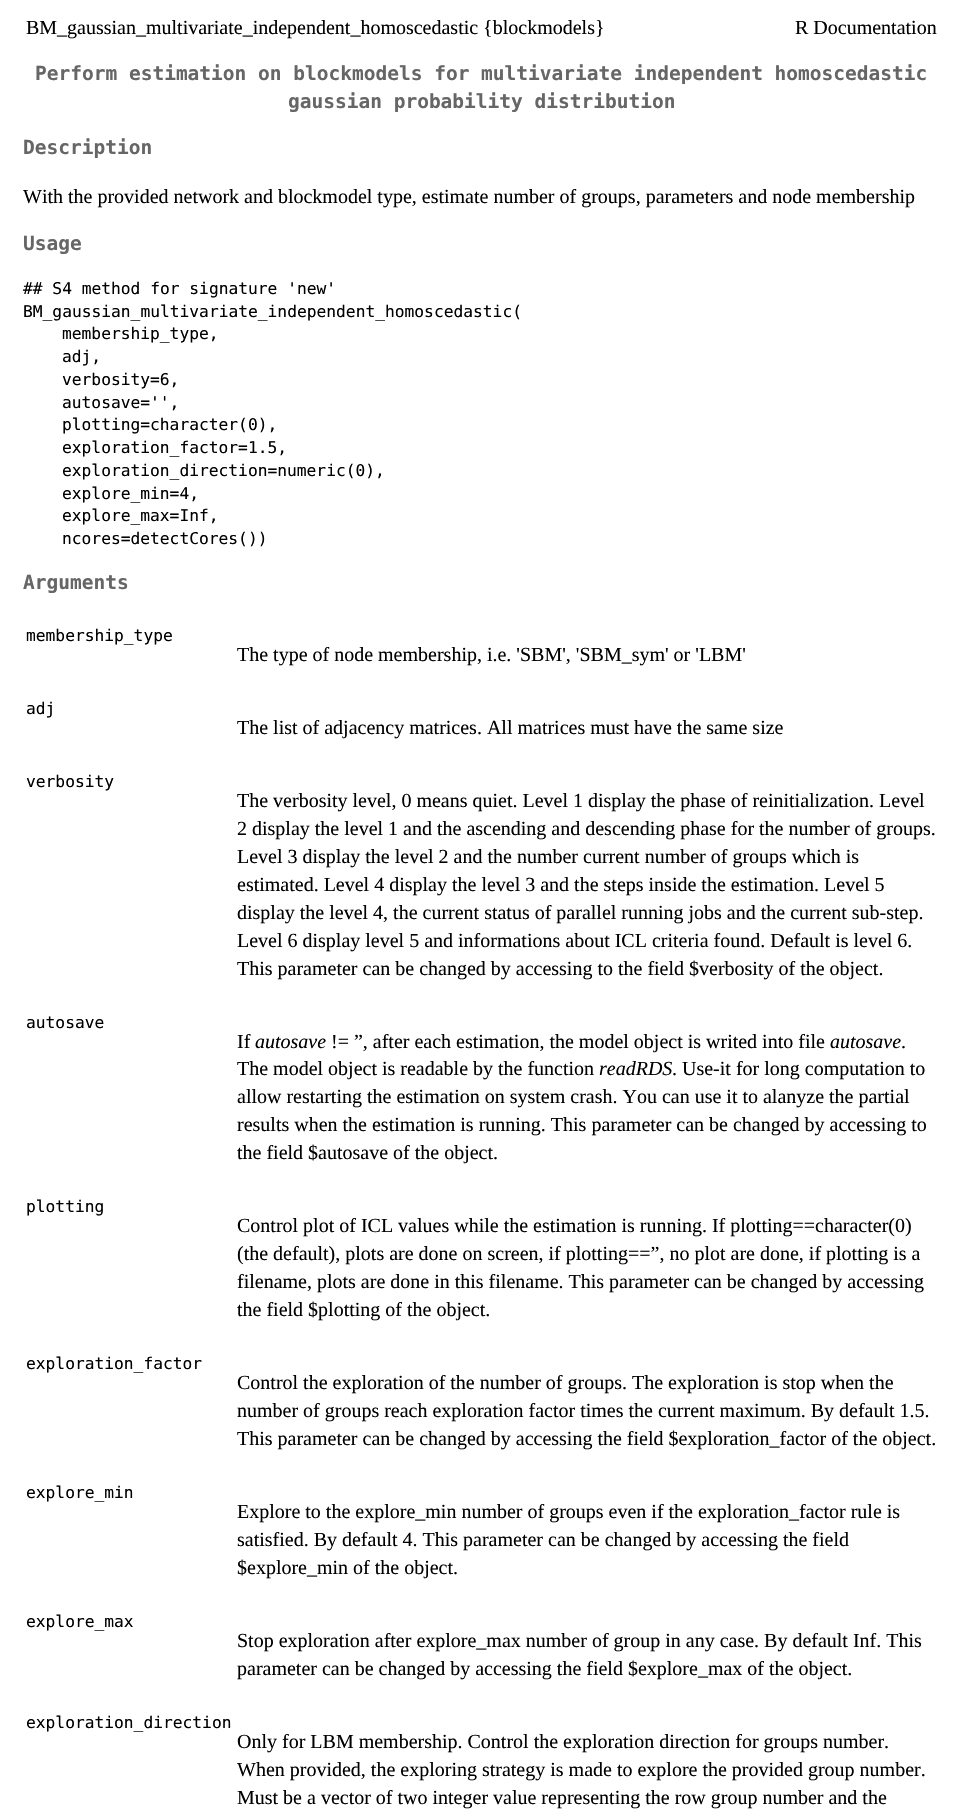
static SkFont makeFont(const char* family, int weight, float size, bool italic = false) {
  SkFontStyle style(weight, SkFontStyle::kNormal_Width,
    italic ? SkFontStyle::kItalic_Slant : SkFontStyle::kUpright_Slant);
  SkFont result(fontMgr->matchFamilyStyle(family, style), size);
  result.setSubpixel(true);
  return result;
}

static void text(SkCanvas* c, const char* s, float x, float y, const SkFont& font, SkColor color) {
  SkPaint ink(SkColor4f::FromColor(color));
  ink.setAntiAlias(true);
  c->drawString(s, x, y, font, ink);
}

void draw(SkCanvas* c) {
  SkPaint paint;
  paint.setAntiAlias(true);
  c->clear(0xffffffff);
  SkFont face1 = makeFont("Liberation Serif", 400, 20);
  text(c, "BM_gaussian_multivariate_independent_homoscedastic {blockmodels}", 26, 34, face1, 0xff000000);
  text(c, "R Documentation", 795, 34, face1, 0xff000000);
  SkFont face2 = makeFont("DejaVu Sans Mono", 700, 19.5f);
  text(c, "Perform estimation on blockmodels for multivariate independent homoscedastic", 35, 80, face2, 0xff666666);
  text(c, "gaussian probability distribution", 288, 108, face2, 0xff666666);
  text(c, "Description", 23, 154, face2, 0xff666666);
  text(c, "With the provided network and blockmodel type, estimate number of groups, parameters and node membership", 23, 203, face1, 0xff000000);
  text(c, "Usage", 23, 250, face2, 0xff666666);
  SkFont face3 = makeFont("DejaVu Sans Mono", 400, 16.25f);
  text(c, "## S4 method for signature 'new'", 23, 294, face3, 0xff000000);
  text(c, "BM_gaussian_multivariate_independent_homoscedastic(", 23, 317, face3, 0xff000000);
  text(c, "membership_type,", 62, 339, face3, 0xff000000);
  text(c, "adj,", 62, 362, face3, 0xff000000);
  text(c, "verbosity=6,", 62, 385, face3, 0xff000000);
  text(c, "autosave='',", 62, 408, face3, 0xff000000);
  text(c, "plotting=character(0),", 62, 430, face3, 0xff000000);
  text(c, "exploration_factor=1.5,", 62, 453, face3, 0xff000000);
  text(c, "exploration_direction=numeric(0),", 62, 476, face3, 0xff000000);
  text(c, "explore_min=4,", 62, 499, face3, 0xff000000);
  text(c, "explore_max=Inf,", 62, 521, face3, 0xff000000);
  text(c, "ncores=detectCores())", 62, 544, face3, 0xff000000);
  text(c, "Arguments", 23, 589, face2, 0xff666666);
  text(c, "membership_type", 26, 641, face3, 0xff000000);
  text(c, "The type of node membership, i.e. 'SBM', 'SBM_sym' or 'LBM'", 237, 661, face1, 0xff000000);
  text(c, "adj", 26, 714, face3, 0xff000000);
  text(c, "The list of adjacency matrices. All matrices must have the same size", 237, 734, face1, 0xff000000);
  text(c, "verbosity", 26, 787, face3, 0xff000000);
  text(c, "The verbosity level, 0 means quiet. Level 1 display the phase of reinitialization. Level", 237, 807, face1, 0xff000000);
  text(c, "2 display the level 1 and the ascending and descending phase for the number of groups.", 237, 835, face1, 0xff000000);
  text(c, "Level 3 display the level 2 and the number current number of groups which is", 237, 863, face1, 0xff000000);
  text(c, "estimated. Level 4 display the level 3 and the steps inside the estimation. Level 5", 237, 891, face1, 0xff000000);
  text(c, "display the level 4, the current status of parallel running jobs and the current sub-step.", 237, 919, face1, 0xff000000);
  text(c, "Level 6 display level 5 and informations about ICL criteria found. Default is level 6.", 237, 947, face1, 0xff000000);
  text(c, "This parameter can be changed by accessing to the field $verbosity of the object.", 237, 975, face1, 0xff000000);
  text(c, "autosave", 26, 1028, face3, 0xff000000);
  text(c, "If", 237, 1048, face1, 0xff000000);
  SkFont face4 = makeFont("Liberation Serif", 400, 20, true);
  text(c, "autosave", 255, 1048, face4, 0xff000000);
  text(c, "!= ”, after each estimation, the model object is writed into file", 331, 1048, face1, 0xff000000);
  text(c, "autosave", 830, 1048, face4, 0xff000000);
  text(c, ".", 901, 1048, face1, 0xff000000);
  text(c, "The model object is readable by the function", 237, 1075, face1, 0xff000000);
  text(c, "readRDS", 599, 1075, face4, 0xff000000);
  text(c, ". Use-it for long computation to", 672, 1075, face1, 0xff000000);
  text(c, "allow restarting the estimation on system crash. You can use it to alanyze the partial", 237, 1103, face1, 0xff000000);
  text(c, "results when the estimation is running. This parameter can be changed by accessing to", 237, 1131, face1, 0xff000000);
  text(c, "the field $autosave of the object.", 237, 1159, face1, 0xff000000);
  text(c, "plotting", 26, 1212, face3, 0xff000000);
  text(c, "Control plot of ICL values while the estimation is running. If plotting==character(0)", 237, 1232, face1, 0xff000000);
  text(c, "(the default), plots are done on screen, if plotting==”, no plot are done, if plotting is a", 237, 1260, face1, 0xff000000);
  text(c, "filename, plots are done in this filename. This parameter can be changed by accessing", 237, 1288, face1, 0xff000000);
  text(c, "the field $plotting of the object.", 237, 1316, face1, 0xff000000);
  text(c, "exploration_factor", 26, 1369, face3, 0xff000000);
  text(c, "Control the exploration of the number of groups. The exploration is stop when the", 237, 1389, face1, 0xff000000);
  text(c, "number of groups reach exploration factor times the current maximum. By default 1.5.", 237, 1417, face1, 0xff000000);
  text(c, "This parameter can be changed by accessing the field $exploration_factor of the object.", 237, 1445, face1, 0xff000000);
  text(c, "explore_min", 26, 1498, face3, 0xff000000);
  text(c, "Explore to the explore_min number of groups even if the exploration_factor rule is", 237, 1518, face1, 0xff000000);
  text(c, "satisfied. By default 4. This parameter can be changed by accessing the field", 237, 1546, face1, 0xff000000);
  text(c, "$explore_min of the object.", 237, 1574, face1, 0xff000000);
  text(c, "explore_max", 26, 1627, face3, 0xff000000);
  text(c, "Stop exploration after explore_max number of group in any case. By default Inf. This", 237, 1647, face1, 0xff000000);
  text(c, "parameter can be changed by accessing the field $explore_max of the object.", 237, 1675, face1, 0xff000000);
  text(c, "exploration_direction", 26, 1728, face3, 0xff000000);
  text(c, "Only for LBM membership. Control the exploration direction for groups number.", 237, 1748, face1, 0xff000000);
  text(c, "When provided, the exploring strategy is made to explore the provided group number.", 237, 1776, face1, 0xff000000);
  text(c, "Must be a vector of two integer value representing the row group number and the", 237, 1804, face1, 0xff000000);
}
